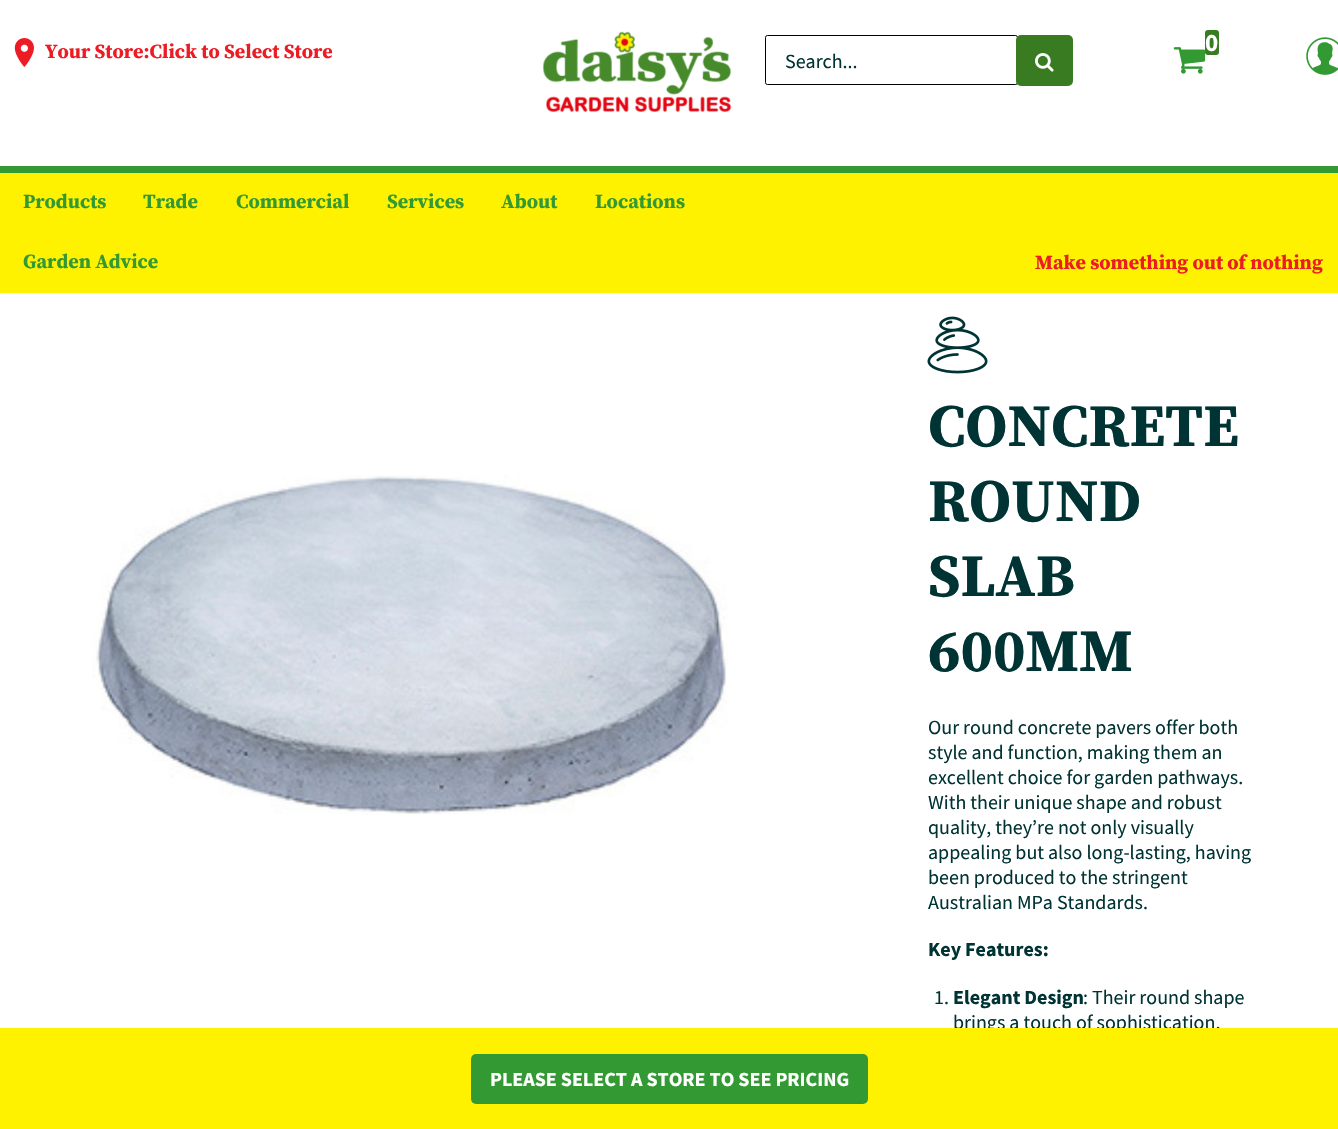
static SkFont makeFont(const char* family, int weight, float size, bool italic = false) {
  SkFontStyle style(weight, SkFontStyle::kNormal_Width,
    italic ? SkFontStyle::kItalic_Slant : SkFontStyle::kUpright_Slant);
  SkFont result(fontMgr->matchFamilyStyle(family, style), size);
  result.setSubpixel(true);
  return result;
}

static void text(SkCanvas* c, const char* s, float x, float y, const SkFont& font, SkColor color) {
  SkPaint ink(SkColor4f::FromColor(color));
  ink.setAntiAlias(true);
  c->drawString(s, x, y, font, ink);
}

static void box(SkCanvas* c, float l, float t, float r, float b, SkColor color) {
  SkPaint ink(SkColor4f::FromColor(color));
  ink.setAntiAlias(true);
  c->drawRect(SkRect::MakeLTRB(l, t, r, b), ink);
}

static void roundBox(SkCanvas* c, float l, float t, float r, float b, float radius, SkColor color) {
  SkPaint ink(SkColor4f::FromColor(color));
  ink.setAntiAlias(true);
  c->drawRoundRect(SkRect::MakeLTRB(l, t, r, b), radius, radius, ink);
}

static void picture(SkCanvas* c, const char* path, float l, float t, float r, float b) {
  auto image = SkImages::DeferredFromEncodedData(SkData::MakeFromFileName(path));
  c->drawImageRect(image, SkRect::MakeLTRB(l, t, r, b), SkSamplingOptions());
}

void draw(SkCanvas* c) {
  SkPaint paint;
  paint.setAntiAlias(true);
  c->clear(0xffffffff);
  picture(c, "img_01.png", 542, 31, 732, 112);
  paint.setStyle(SkPaint::kStroke_Style);
  paint.setStrokeWidth(1);
  paint.setColor(0xff000000);
  c->drawRoundRect(SkRect::MakeLTRB(765.5f, 35.5f, 1017.5f, 84.5f), 2, 2, paint);
  SkFont face1 = makeFont("Source Sans Pro", 400, 20);
  text(c, "Search...", 785, 68, face1, 0xff003333);
  roundBox(c, 1016, 35, 1073, 86, 5, 0xff397b21);
  picture(c, "img_02.png", 1035, 53, 1054, 72);
  picture(c, "img_03.png", 1173, 47, 1206, 74);
  roundBox(c, 1205, 30, 1219, 55, 3, 0xff397b21);
  SkFont face2 = makeFont("Source Sans Pro", 700, 25);
  text(c, "0", 1205, 51, face2, 0xffffffff);
  picture(c, "img_04.png", 1306, 37, 1338, 75);
  box(c, 0, 166, 1338, 173, 0xff339933);
  picture(c, "img_05.png", 14, 38, 34, 67);
  SkFont face3 = makeFont("Source Serif Pro", 700, 20);
  text(c, "Your Store:Click to Select Store", 45, 58, face3, 0xffed1c24);
  box(c, 0, 173, 1338, 293, 0xfffff200);
  text(c, "Products", 23, 208, face3, 0xff339933);
  text(c, "Trade", 143, 208, face3, 0xff339933);
  text(c, "Commercial", 236, 208, face3, 0xff339933);
  text(c, "Services", 387, 208, face3, 0xff339933);
  text(c, "About", 501, 208, face3, 0xff339933);
  text(c, "Locations", 595, 208, face3, 0xff339933);
  text(c, "Garden Advice", 23, 268, face3, 0xff339933);
  text(c, "Make something out of nothing", 1035, 269, face3, 0xffed1c24);
  picture(c, "img_06.png", 92, 475, 728, 815);
  picture(c, "img_07.png", 927, 316, 988, 374);
  SkFont face4 = makeFont("Source Serif Pro", 700, 60);
  text(c, "CONCRETE", 928, 446, face4, 0xff003333);
  text(c, "ROUND", 928, 521, face4, 0xff003333);
  text(c, "SLAB", 928, 596, face4, 0xff003333);
  text(c, "600MM", 928, 671, face4, 0xff003333);
  text(c, "Our round concrete pavers offer both", 928, 734, face1, 0xff003333);
  text(c, "style and function, making them an", 928, 759, face1, 0xff003333);
  text(c, "excellent choice for garden pathways.", 928, 784, face1, 0xff003333);
  text(c, "With their unique shape and robust", 928, 809, face1, 0xff003333);
  text(c, "quality, they’re not only visually", 928, 834, face1, 0xff003333);
  text(c, "appealing but also long-lasting, having", 928, 859, face1, 0xff003333);
  text(c, "been produced to the stringent", 928, 884, face1, 0xff003333);
  text(c, "Australian MPa Standards.", 928, 909, face1, 0xff003333);
  SkFont face5 = makeFont("Source Sans Pro", 700, 20);
  text(c, "Key Features:", 928, 956, face5, 0xff003333);
  text(c, "1.", 934, 1004, face1, 0xff003333);
  text(c, "Elegant Design", 953, 1004, face5, 0xff003333);
  text(c, ": Their round shape", 1083, 1004, face1, 0xff003333);
  text(c, "brings a touch of sophistication,", 953, 1029, face1, 0xff003333);
  box(c, 0, 1028, 1338, 1129, 0xfffff200);
  roundBox(c, 471, 1054, 868, 1104, 5, 0xff339933);
  text(c, "PLEASE SELECT A STORE TO SEE PRICING", 490, 1086, face5, 0xffffffff);
}
